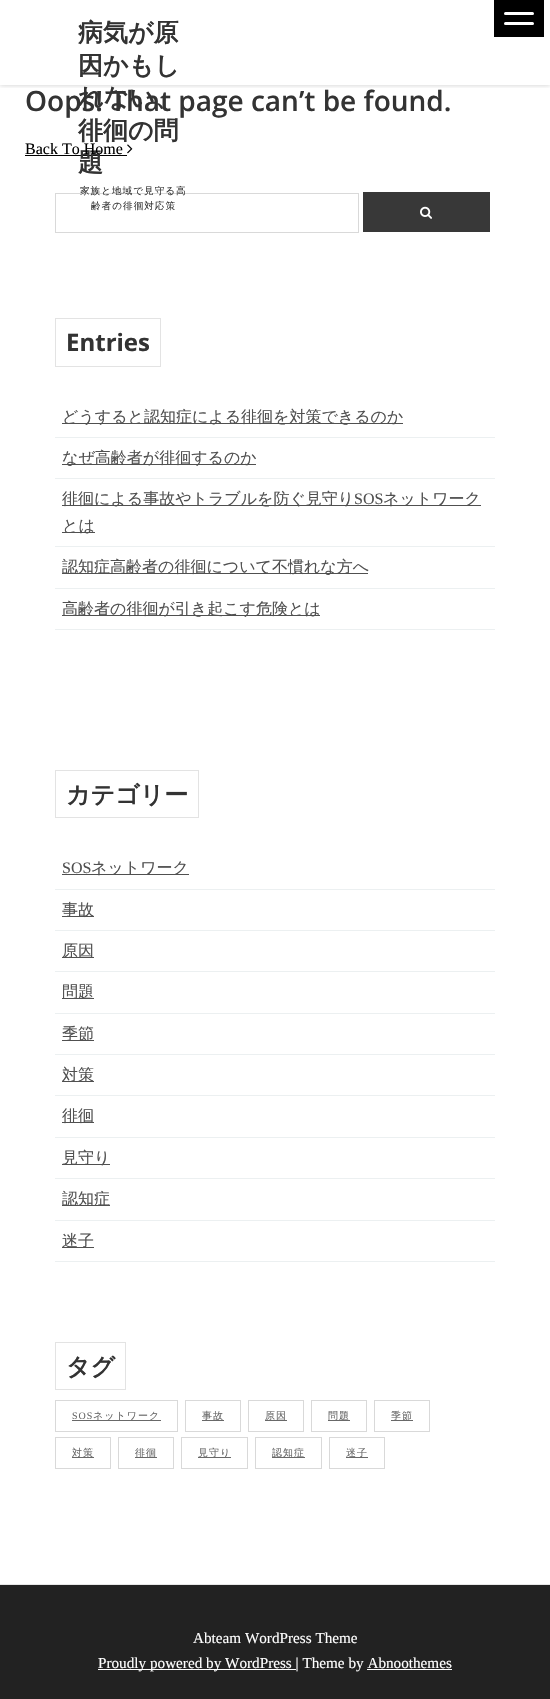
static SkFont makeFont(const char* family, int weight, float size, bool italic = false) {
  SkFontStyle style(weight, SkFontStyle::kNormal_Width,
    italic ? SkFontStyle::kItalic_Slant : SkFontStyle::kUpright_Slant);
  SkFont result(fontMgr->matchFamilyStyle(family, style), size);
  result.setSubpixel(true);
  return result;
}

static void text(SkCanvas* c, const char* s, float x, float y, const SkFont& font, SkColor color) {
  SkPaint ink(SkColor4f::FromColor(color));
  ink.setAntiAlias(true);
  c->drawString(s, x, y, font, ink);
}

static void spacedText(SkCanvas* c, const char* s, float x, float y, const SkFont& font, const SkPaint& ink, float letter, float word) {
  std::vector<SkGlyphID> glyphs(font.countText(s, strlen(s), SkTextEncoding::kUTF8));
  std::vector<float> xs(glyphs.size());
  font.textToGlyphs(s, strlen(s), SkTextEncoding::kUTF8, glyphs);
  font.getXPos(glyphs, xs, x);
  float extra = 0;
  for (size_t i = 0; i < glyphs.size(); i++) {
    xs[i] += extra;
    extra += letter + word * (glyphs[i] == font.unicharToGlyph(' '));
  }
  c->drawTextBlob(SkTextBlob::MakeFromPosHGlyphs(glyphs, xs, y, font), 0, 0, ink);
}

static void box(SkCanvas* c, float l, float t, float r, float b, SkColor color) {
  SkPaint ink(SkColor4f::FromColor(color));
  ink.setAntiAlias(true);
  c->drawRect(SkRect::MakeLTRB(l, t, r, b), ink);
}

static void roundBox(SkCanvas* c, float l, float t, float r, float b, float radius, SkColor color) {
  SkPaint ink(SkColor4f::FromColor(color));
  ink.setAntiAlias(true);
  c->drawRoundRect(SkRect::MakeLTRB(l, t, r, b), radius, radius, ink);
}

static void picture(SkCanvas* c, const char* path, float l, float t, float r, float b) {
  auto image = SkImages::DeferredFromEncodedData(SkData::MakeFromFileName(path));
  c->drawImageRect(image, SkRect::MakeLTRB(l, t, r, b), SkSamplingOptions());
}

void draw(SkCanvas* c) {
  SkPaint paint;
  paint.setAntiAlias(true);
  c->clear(0xffffffff);
  c->save();
  c->clipRect(SkRect::MakeLTRB(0, 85, 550, 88));
  paint.setColor(0x33000000);
  paint.setMaskFilter(SkMaskFilter::MakeBlur(kNormal_SkBlurStyle, 2.5f));
  c->drawRect(SkRect::MakeLTRB(0, -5, 550, 85), paint);
  paint.setMaskFilter(nullptr);
  c->restore();
  SkFont face1 = makeFont("WenQuanYi Zen Hei", 700, 25);
  text(c, "病気が原", 78, 41, face1, 0xff333333);
  text(c, "因かもし", 78, 74, face1, 0xff333333);
  SkFont face2 = makeFont("Open Sans", 600, 28);
  text(c, "Oops! That page can’t be found.", 25, 111, face2, 0xff333333);
  text(c, "れない、", 78, 106, face1, 0xff333333);
  text(c, "徘徊の問", 78, 139, face1, 0xff333333);
  box(c, 25, 155, 127, 156, 0xff000000);
  text(c, "題", 78, 171, face1, 0xff333333);
  paint.setStyle(SkPaint::kStroke_Style);
  paint.setStrokeWidth(1);
  paint.setColor(0xffd9d9d9);
  c->drawRect(SkRect::MakeLTRB(55.5f, 193.5f, 358.5f, 232.5f), paint);
  SkFont face3 = makeFont("WenQuanYi Zen Hei", 500, 9.6f);
  paint.setStyle(SkPaint::kFill_Style);
  paint.setColor(0xff333333);
  spacedText(c, "家族と地域で見守る高", 80, 194, face3, paint, 1, 0);
  spacedText(c, "齢者の徘徊対応策", 91, 209, face3, paint, 1, 0);
  box(c, 494, 0, 544, 37, 0xff000000);
  roundBox(c, 504, 12, 534, 15, 1.5f, 0xffffffff);
  roundBox(c, 504, 22, 534, 25, 1.5f, 0xffffffff);
  SkFont face4 = makeFont("Liberation Serif", 400, 16);
  text(c, "Back To Home", 25, 154, face4, 0xff000000);
  picture(c, "img_01.png", 127, 144, 133, 154);
  box(c, 363, 192, 490, 232, 0xff383838);
  picture(c, "img_02.png", 420, 206, 432, 219);
  paint.setStyle(SkPaint::kStroke_Style);
  paint.setColor(0xffe3e3e3);
  c->drawRect(SkRect::MakeLTRB(55.5f, 318.5f, 160.5f, 366.5f), paint);
  SkFont face5 = makeFont("Open Sans", 700, 24);
  text(c, "Entries", 66, 351, face5, 0xff333333);
  box(c, 55, 437, 495, 438, 0xffecf0f1);
  box(c, 62, 423, 403, 424, 0xff505050);
  SkFont face6 = makeFont("WenQuanYi Zen Hei", 500, 16);
  text(c, "どうすると認知症による徘徊を対策できるのか", 62, 422, face6, 0xff505050);
  box(c, 55, 478, 495, 479, 0xffecf0f1);
  box(c, 62, 464, 256, 465, 0xff505050);
  text(c, "なぜ高齢者が徘徊するのか", 62, 463, face6, 0xff505050);
  box(c, 55, 546, 495, 547, 0xffecf0f1);
  box(c, 62, 505, 481, 506, 0xff505050);
  text(c, "徘徊による事故やトラブルを防ぐ見守り", 62, 504, face6, 0xff505050);
  text(c, "SOS", 354, 504, face4, 0xff505050);
  text(c, "ネットワーク", 383, 504, face6, 0xff505050);
  box(c, 62, 532, 95, 533, 0xff505050);
  text(c, "とは", 62, 531, face6, 0xff505050);
  box(c, 55, 588, 495, 589, 0xffecf0f1);
  box(c, 62, 573, 368, 574, 0xff505050);
  text(c, "認知症高齢者の徘徊について不慣れな方へ", 62, 572, face6, 0xff505050);
  box(c, 55, 629, 495, 630, 0xffecf0f1);
  box(c, 62, 615, 320, 616, 0xff505050);
  text(c, "高齢者の徘徊が引き起こす危険とは", 62, 614, face6, 0xff505050);
  c->drawRect(SkRect::MakeLTRB(55.5f, 770.5f, 198.5f, 817.5f), paint);
  SkFont face7 = makeFont("WenQuanYi Zen Hei", 700, 24);
  text(c, "カテゴリー", 66, 803, face7, 0xff333333);
  box(c, 55, 889, 495, 890, 0xffecf0f1);
  text(c, "SOS", 62, 873, face4, 0xff505050);
  box(c, 62, 874, 189, 875, 0xff505050);
  text(c, "ネットワーク", 91, 873, face6, 0xff505050);
  box(c, 55, 930, 495, 931, 0xffecf0f1);
  box(c, 62, 916, 94, 917, 0xff505050);
  text(c, "事故", 62, 915, face6, 0xff505050);
  box(c, 55, 971, 495, 972, 0xffecf0f1);
  box(c, 62, 957, 94, 958, 0xff505050);
  text(c, "原因", 62, 956, face6, 0xff505050);
  box(c, 55, 1013, 495, 1014, 0xffecf0f1);
  box(c, 62, 998, 94, 999, 0xff505050);
  text(c, "問題", 62, 997, face6, 0xff505050);
  box(c, 55, 1054, 495, 1055, 0xffecf0f1);
  box(c, 62, 1040, 94, 1041, 0xff505050);
  text(c, "季節", 62, 1039, face6, 0xff505050);
  box(c, 55, 1095, 495, 1096, 0xffecf0f1);
  box(c, 62, 1081, 94, 1082, 0xff505050);
  text(c, "対策", 62, 1080, face6, 0xff505050);
  box(c, 55, 1137, 495, 1138, 0xffecf0f1);
  box(c, 62, 1122, 94, 1123, 0xff505050);
  text(c, "徘徊", 62, 1121, face6, 0xff505050);
  box(c, 55, 1178, 495, 1179, 0xffecf0f1);
  box(c, 62, 1164, 110, 1165, 0xff505050);
  text(c, "見守り", 62, 1163, face6, 0xff505050);
  box(c, 55, 1220, 495, 1221, 0xffecf0f1);
  box(c, 62, 1205, 110, 1206, 0xff505050);
  text(c, "認知症", 62, 1204, face6, 0xff505050);
  box(c, 55, 1261, 495, 1262, 0xffecf0f1);
  box(c, 62, 1247, 94, 1248, 0xff505050);
  text(c, "迷子", 62, 1246, face6, 0xff505050);
  c->drawRect(SkRect::MakeLTRB(55.5f, 1342.5f, 125.5f, 1389.5f), paint);
  text(c, "タグ", 66, 1375, face7, 0xff333333);
  paint.setColor(0xffd9d9d9);
  c->drawRect(SkRect::MakeLTRB(55.5f, 1400.5f, 177.5f, 1431.5f), paint);
  SkFont face8 = makeFont("Liberation Serif", 400, 10);
  paint.setStyle(SkPaint::kFill_Style);
  paint.setColor(0xff686868);
  spacedText(c, "SOS", 72, 1419, face8, paint, 1, 0);
  box(c, 72, 1420, 161, 1421, 0xff686868);
  SkFont face9 = makeFont("WenQuanYi Zen Hei", 500, 10);
  spacedText(c, "ネットワーク", 93, 1419, face9, paint, 1, 0);
  paint.setStyle(SkPaint::kStroke_Style);
  paint.setColor(0xffd9d9d9);
  c->drawRect(SkRect::MakeLTRB(185.5f, 1400.5f, 240.5f, 1431.5f), paint);
  box(c, 202, 1420, 224, 1421, 0xff686868);
  paint.setStyle(SkPaint::kFill_Style);
  paint.setColor(0xff686868);
  spacedText(c, "事故", 202, 1419, face9, paint, 1, 0);
  paint.setStyle(SkPaint::kStroke_Style);
  paint.setColor(0xffd9d9d9);
  c->drawRect(SkRect::MakeLTRB(248.5f, 1400.5f, 303.5f, 1431.5f), paint);
  box(c, 265, 1420, 287, 1421, 0xff686868);
  paint.setStyle(SkPaint::kFill_Style);
  paint.setColor(0xff686868);
  spacedText(c, "原因", 265, 1419, face9, paint, 1, 0);
  paint.setStyle(SkPaint::kStroke_Style);
  paint.setColor(0xffd9d9d9);
  c->drawRect(SkRect::MakeLTRB(311.5f, 1400.5f, 366.5f, 1431.5f), paint);
  box(c, 328, 1420, 350, 1421, 0xff686868);
  paint.setStyle(SkPaint::kFill_Style);
  paint.setColor(0xff686868);
  spacedText(c, "問題", 328, 1419, face9, paint, 1, 0);
  paint.setStyle(SkPaint::kStroke_Style);
  paint.setColor(0xffd9d9d9);
  c->drawRect(SkRect::MakeLTRB(374.5f, 1400.5f, 429.5f, 1431.5f), paint);
  box(c, 391, 1420, 413, 1421, 0xff686868);
  paint.setStyle(SkPaint::kFill_Style);
  paint.setColor(0xff686868);
  spacedText(c, "季節", 391, 1419, face9, paint, 1, 0);
  paint.setStyle(SkPaint::kStroke_Style);
  paint.setColor(0xffd9d9d9);
  c->drawRect(SkRect::MakeLTRB(55.5f, 1437.5f, 110.5f, 1468.5f), paint);
  box(c, 72, 1457, 94, 1458, 0xff686868);
  paint.setStyle(SkPaint::kFill_Style);
  paint.setColor(0xff686868);
  spacedText(c, "対策", 72, 1456, face9, paint, 1, 0);
  paint.setStyle(SkPaint::kStroke_Style);
  paint.setColor(0xffd9d9d9);
  c->drawRect(SkRect::MakeLTRB(118.5f, 1437.5f, 173.5f, 1468.5f), paint);
  box(c, 135, 1457, 157, 1458, 0xff686868);
  paint.setStyle(SkPaint::kFill_Style);
  paint.setColor(0xff686868);
  spacedText(c, "徘徊", 135, 1456, face9, paint, 1, 0);
  paint.setStyle(SkPaint::kStroke_Style);
  paint.setColor(0xffd9d9d9);
  c->drawRect(SkRect::MakeLTRB(181.5f, 1437.5f, 247.5f, 1468.5f), paint);
  box(c, 198, 1457, 231, 1458, 0xff686868);
  paint.setStyle(SkPaint::kFill_Style);
  paint.setColor(0xff686868);
  spacedText(c, "見守り", 198, 1456, face9, paint, 1, 0);
  paint.setStyle(SkPaint::kStroke_Style);
  paint.setColor(0xffd9d9d9);
  c->drawRect(SkRect::MakeLTRB(255.5f, 1437.5f, 321.5f, 1468.5f), paint);
  box(c, 272, 1457, 305, 1458, 0xff686868);
  paint.setStyle(SkPaint::kFill_Style);
  paint.setColor(0xff686868);
  spacedText(c, "認知症", 272, 1456, face9, paint, 1, 0);
  paint.setStyle(SkPaint::kStroke_Style);
  paint.setColor(0xffd9d9d9);
  c->drawRect(SkRect::MakeLTRB(329.5f, 1437.5f, 384.5f, 1468.5f), paint);
  paint.setStyle(SkPaint::kFill_Style);
  paint.setColor(0xff686868);
  spacedText(c, "迷子", 346, 1456, face9, paint, 1, 0);
  box(c, 346, 1457, 368, 1458, 0xff686868);
  box(c, 0, 1585, 550, 1699, 0xff222222);
  box(c, 0, 1584, 550, 1585, 0xffe6e6e6);
  SkFont face10 = makeFont("Liberation Serif", 400, 15.2f);
  text(c, "Abteam WordPress Theme", 193, 1643, face10, 0xffffffff);
  box(c, 98, 1669, 296, 1670, 0xffffffff);
  text(c, "Proudly powered by WordPress | Theme by Abnoothemes", 98, 1668, face10, 0xffffffff);
  box(c, 367, 1669, 452, 1670, 0xffffffff);
}
